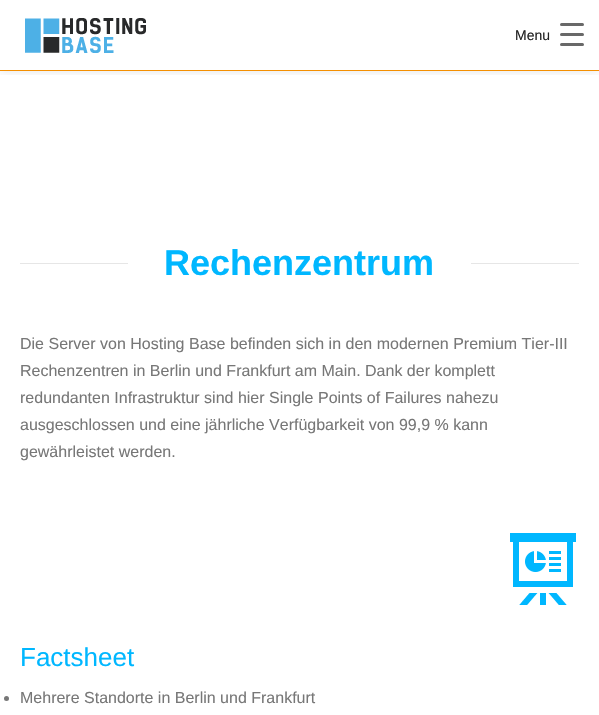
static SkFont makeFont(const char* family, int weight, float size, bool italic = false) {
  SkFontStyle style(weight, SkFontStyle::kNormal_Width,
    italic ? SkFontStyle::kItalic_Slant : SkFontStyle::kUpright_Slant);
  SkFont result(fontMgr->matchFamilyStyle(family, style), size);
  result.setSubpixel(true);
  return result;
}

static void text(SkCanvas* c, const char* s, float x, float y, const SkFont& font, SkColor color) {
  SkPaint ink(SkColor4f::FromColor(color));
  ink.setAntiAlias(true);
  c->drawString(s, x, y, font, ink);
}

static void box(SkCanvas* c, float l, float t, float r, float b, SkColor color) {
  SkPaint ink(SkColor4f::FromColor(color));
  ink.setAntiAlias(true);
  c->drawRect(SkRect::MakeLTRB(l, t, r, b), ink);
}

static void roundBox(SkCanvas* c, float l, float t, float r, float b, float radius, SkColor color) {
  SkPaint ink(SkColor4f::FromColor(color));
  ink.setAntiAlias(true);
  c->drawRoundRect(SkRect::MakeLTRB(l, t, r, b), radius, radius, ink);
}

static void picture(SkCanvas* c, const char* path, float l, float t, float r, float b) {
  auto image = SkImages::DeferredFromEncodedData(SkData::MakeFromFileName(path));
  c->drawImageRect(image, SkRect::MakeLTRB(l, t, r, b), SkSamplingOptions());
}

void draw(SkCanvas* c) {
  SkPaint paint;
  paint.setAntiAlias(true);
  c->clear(0xffffffff);
  c->save();
  c->clipRect(SkRect::MakeLTRB(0, 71, 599, 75));
  paint.setColor(0x1a000000);
  paint.setMaskFilter(SkMaskFilter::MakeBlur(kNormal_SkBlurStyle, 5));
  c->drawRect(SkRect::MakeLTRB(0, 0, 599, 71), paint);
  paint.setMaskFilter(nullptr);
  c->restore();
  box(c, 0, 70, 599, 71, 0xfff48f01);
  picture(c, "img_01.png", 25, 18, 146, 53);
  SkFont face1 = makeFont("Liberation Sans", 400, 14);
  text(c, "Menu", 515, 40, face1, 0xff232323);
  roundBox(c, 560, 33, 584, 36, 1.5f, 0xff686868);
  roundBox(c, 560, 23, 584, 26, 1.5f, 0xff686868);
  roundBox(c, 560, 43, 584, 46, 1.5f, 0xff686868);
  box(c, 20, 263, 128, 264, 0xffe6e6e6);
  SkFont face2 = makeFont("Liberation Sans", 700, 36);
  text(c, "Rechenzentrum", 164, 275, face2, 0xff00b7ff);
  box(c, 471, 263, 579, 264, 0xffe6e6e6);
  SkFont face3 = makeFont("Liberation Sans", 400, 16);
  text(c, "Die Server von Hosting Base befinden sich in den modernen Premium Tier-III", 20, 349, face3, 0xff777777);
  text(c, "Rechenzentren in Berlin und Frankfurt am Main. Dank der komplett", 20, 376, face3, 0xff777777);
  text(c, "redundanten Infrastruktur sind hier Single Points of Failures nahezu", 20, 403, face3, 0xff777777);
  text(c, "ausgeschlossen und eine jährliche Verfügbarkeit von 99,9 % kann", 20, 430, face3, 0xff777777);
  text(c, "gewährleistet werden.", 20, 457, face3, 0xff777777);
  picture(c, "img_02.png", 510, 533, 576, 605);
  SkFont face4 = makeFont("Liberation Sans", 400, 26);
  text(c, "Factsheet", 20, 666, face4, 0xff00b7ff);
  paint.setColor(0xff777777);
  c->drawCircle(6.5f, 698.5f, 2.5f, paint);
  text(c, "Mehrere Standorte in Berlin und Frankfurt", 20, 703, face3, 0xff777777);
}
